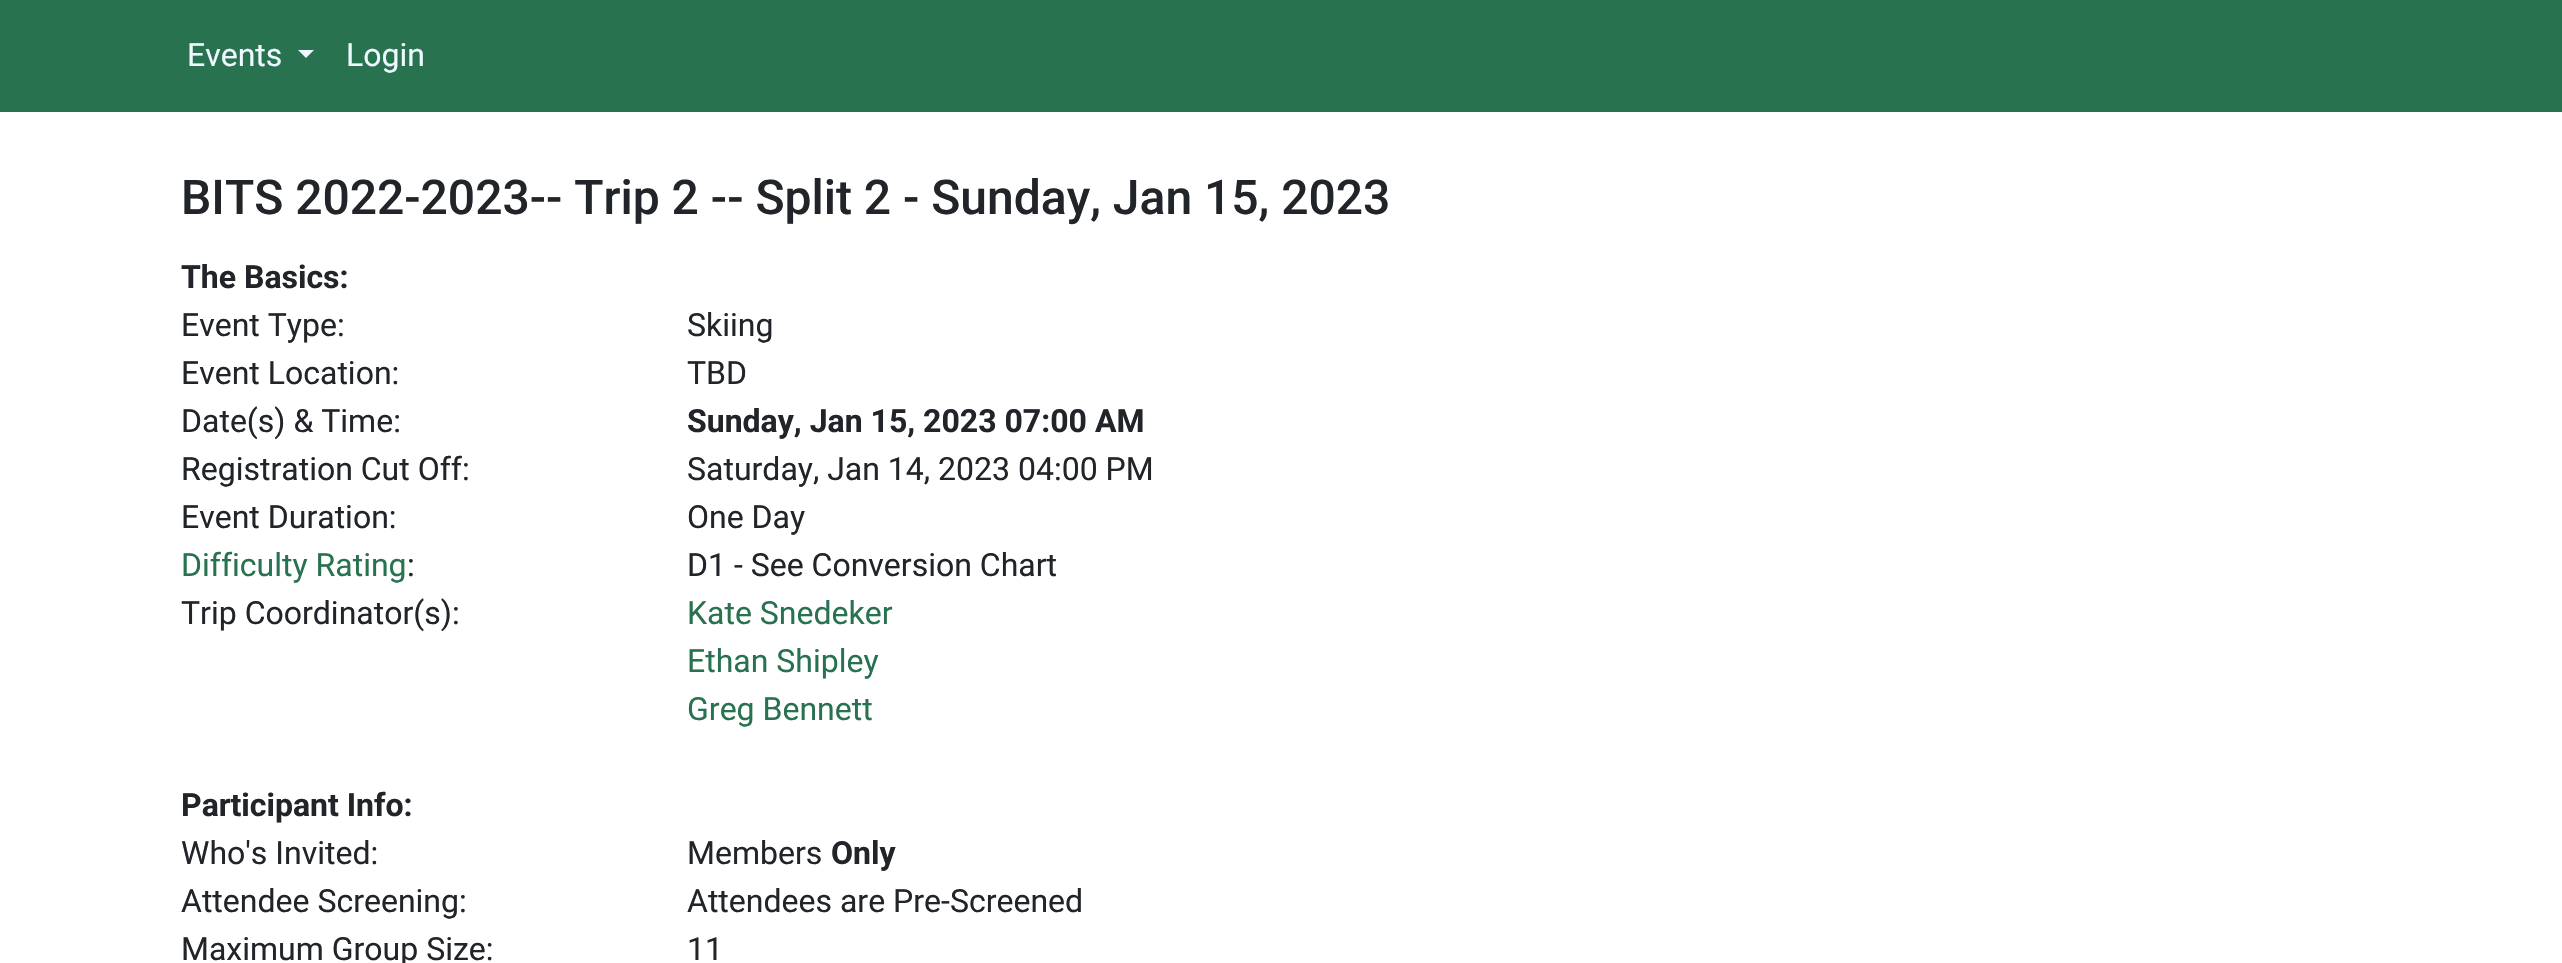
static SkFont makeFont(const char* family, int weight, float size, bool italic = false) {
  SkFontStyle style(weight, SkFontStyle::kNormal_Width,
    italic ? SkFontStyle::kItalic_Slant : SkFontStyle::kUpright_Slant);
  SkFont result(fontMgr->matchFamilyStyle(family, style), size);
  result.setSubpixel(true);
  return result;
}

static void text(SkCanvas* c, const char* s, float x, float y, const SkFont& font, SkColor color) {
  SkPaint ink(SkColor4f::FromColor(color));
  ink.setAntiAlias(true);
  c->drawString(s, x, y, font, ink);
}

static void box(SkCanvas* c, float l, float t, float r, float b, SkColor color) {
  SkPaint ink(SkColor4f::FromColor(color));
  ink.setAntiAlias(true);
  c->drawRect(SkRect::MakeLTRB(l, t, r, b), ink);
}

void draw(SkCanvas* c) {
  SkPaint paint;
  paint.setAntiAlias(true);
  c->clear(0xffffffff);
  box(c, 0, 0, 2562, 112, 0xff28724f);
  SkFont face1 = makeFont("Roboto", 400, 32);
  text(c, "Events", 187, 66, face1, 0xfff0f8ff);
  paint.setColor(0xfff0f8ff);
  c->drawPath(SkPathBuilder().moveTo(298, 50).lineTo(314, 50).lineTo(306, 58).close().detach(), paint);
  text(c, "Login", 346, 66, face1, 0xfff0f8ff);
  SkFont face2 = makeFont("Roboto", 500, 48);
  text(c, "BITS 2022-2023-- Trip 2 -- Split 2 - Sunday, Jan 15, 2023", 181, 214, face2, 0xff212529);
  SkFont face3 = makeFont("Roboto", 700, 32);
  text(c, "The Basics:", 181, 288, face3, 0xff212529);
  text(c, "Event Type:", 181, 336, face1, 0xff212529);
  text(c, "Skiing", 687, 336, face1, 0xff212529);
  text(c, "Event Location:", 181, 384, face1, 0xff212529);
  text(c, "TBD", 687, 384, face1, 0xff212529);
  text(c, "Date(s) & Time:", 181, 432, face1, 0xff212529);
  text(c, "Sunday, Jan 15, 2023 07:00 AM", 687, 432, face3, 0xff212529);
  text(c, "Registration Cut Off:", 181, 480, face1, 0xff212529);
  text(c, "Saturday, Jan 14, 2023 04:00 PM", 687, 480, face1, 0xff212529);
  text(c, "Event Duration:", 181, 528, face1, 0xff212529);
  text(c, "One Day", 687, 528, face1, 0xff212529);
  text(c, "Difficulty Rating", 181, 576, face1, 0xff28724f);
  text(c, ":", 407, 576, face1, 0xff212529);
  text(c, "D1 - See Conversion Chart", 687, 576, face1, 0xff212529);
  text(c, "Trip Coordinator(s):", 181, 624, face1, 0xff212529);
  text(c, "Kate Snedeker", 687, 624, face1, 0xff28724f);
  text(c, "Ethan Shipley", 687, 672, face1, 0xff28724f);
  text(c, "Greg Bennett", 687, 720, face1, 0xff28724f);
  text(c, "Participant Info:", 181, 816, face3, 0xff212529);
  text(c, "Who's Invited:", 181, 864, face1, 0xff212529);
  text(c, "Members", 687, 864, face1, 0xff212529);
  text(c, "Only", 831, 864, face3, 0xff212529);
  text(c, "Attendee Screening:", 181, 912, face1, 0xff212529);
  text(c, "Attendees are Pre-Screened", 687, 912, face1, 0xff212529);
  text(c, "Maximum Group Size:", 181, 960, face1, 0xff212529);
  text(c, "11", 687, 960, face1, 0xff212529);
}
